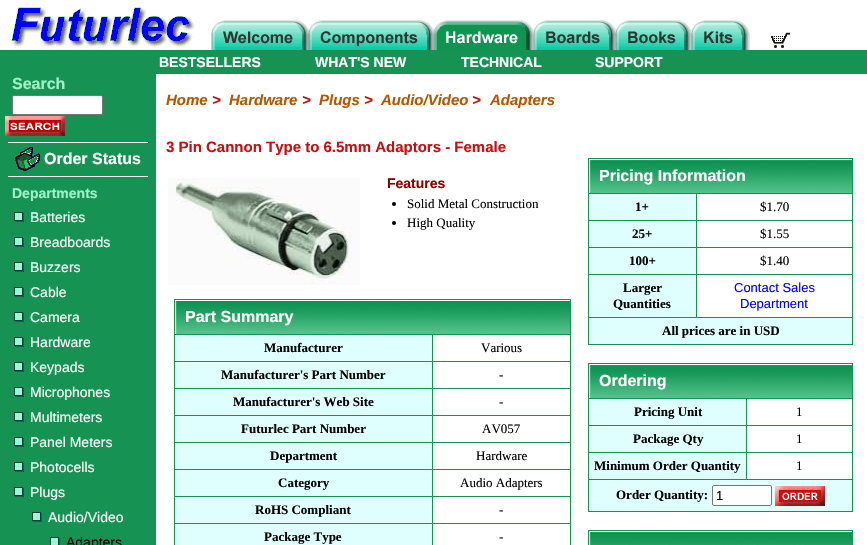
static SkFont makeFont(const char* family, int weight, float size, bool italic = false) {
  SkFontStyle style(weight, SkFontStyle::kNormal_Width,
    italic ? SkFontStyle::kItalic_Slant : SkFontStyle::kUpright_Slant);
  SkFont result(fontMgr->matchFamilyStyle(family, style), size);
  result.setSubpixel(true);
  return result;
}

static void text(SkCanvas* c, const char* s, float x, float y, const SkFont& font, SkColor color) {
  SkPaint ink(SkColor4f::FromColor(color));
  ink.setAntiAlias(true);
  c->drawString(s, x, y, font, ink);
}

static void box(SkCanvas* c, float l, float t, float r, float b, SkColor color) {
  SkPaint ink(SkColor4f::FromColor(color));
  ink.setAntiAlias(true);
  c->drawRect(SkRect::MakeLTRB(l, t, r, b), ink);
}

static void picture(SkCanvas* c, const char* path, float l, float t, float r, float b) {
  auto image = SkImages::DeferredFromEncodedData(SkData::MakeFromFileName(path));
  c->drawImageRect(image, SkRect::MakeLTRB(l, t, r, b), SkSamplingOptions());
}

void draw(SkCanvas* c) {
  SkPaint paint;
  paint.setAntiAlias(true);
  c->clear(0xffffffff);
  picture(c, "img_01.png", 11, 7, 195, 47);
  picture(c, "img_02.png", 211, 20, 750, 50);
  picture(c, "img_03.png", 771, 32, 790, 48);
  box(c, 0, 50, 867, 74, 0xff169253);
  SkFont face1 = makeFont("Liberation Sans", 700, 14);
  text(c, "BESTSELLERS", 159, 67, face1, 0xffffffff);
  text(c, "WHAT'S NEW", 315, 67, face1, 0xffffffff);
  text(c, "TECHNICAL", 461, 67, face1, 0xffffffff);
  text(c, "SUPPORT", 595, 67, face1, 0xffffffff);
  box(c, 0, 74, 156, 545, 0xff169253);
  SkFont face2 = makeFont("Liberation Sans", 700, 16);
  text(c, "Search", 12, 89, face2, 0xff9ff1c8);
  paint.setColor(0xffffffff);
  c->drawRoundRect(SkRect::MakeLTRB(12.5f, 95.5f, 102.5f, 114.5f), 1.5f, 1.5f, paint);
  paint.setStyle(SkPaint::kStroke_Style);
  paint.setStrokeWidth(1);
  paint.setColor(0xff767676);
  c->drawRoundRect(SkRect::MakeLTRB(12.5f, 95.5f, 102.5f, 114.5f), 1.5f, 1.5f, paint);
  picture(c, "img_04.png", 5, 116, 65, 136);
  box(c, 8, 142, 148, 143, 0xffffffff);
  picture(c, "img_05.png", 15, 147, 40, 171);
  text(c, "Order Status", 44, 164, face2, 0xffffffff);
  box(c, 8, 176, 148, 177, 0xffffffff);
  text(c, "Departments", 12, 198, face1, 0xff9ff1c8);
  picture(c, "img_06.png", 14, 212, 24, 222);
  SkFont face3 = makeFont("Liberation Sans", 400, 14);
  text(c, "Batteries", 30, 222, face3, 0xffffffff);
  picture(c, "img_06.png", 14, 237, 24, 247);
  text(c, "Breadboards", 30, 247, face3, 0xffffffff);
  picture(c, "img_06.png", 14, 262, 24, 272);
  text(c, "Buzzers", 30, 272, face3, 0xffffffff);
  picture(c, "img_06.png", 14, 287, 24, 297);
  text(c, "Cable", 30, 297, face3, 0xffffffff);
  picture(c, "img_06.png", 14, 312, 24, 322);
  text(c, "Camera", 30, 322, face3, 0xffffffff);
  picture(c, "img_06.png", 14, 337, 24, 347);
  text(c, "Hardware", 30, 347, face3, 0xffffffff);
  picture(c, "img_06.png", 14, 362, 24, 372);
  text(c, "Keypads", 30, 372, face3, 0xffffffff);
  picture(c, "img_06.png", 14, 387, 24, 397);
  text(c, "Microphones", 30, 397, face3, 0xffffffff);
  picture(c, "img_06.png", 14, 412, 24, 422);
  text(c, "Multimeters", 30, 422, face3, 0xffffffff);
  picture(c, "img_06.png", 14, 437, 24, 447);
  text(c, "Panel Meters", 30, 447, face3, 0xffffffff);
  picture(c, "img_06.png", 14, 462, 24, 472);
  text(c, "Photocells", 30, 472, face3, 0xffffffff);
  picture(c, "img_06.png", 14, 487, 24, 497);
  text(c, "Plugs", 30, 497, face3, 0xffffffff);
  picture(c, "img_06.png", 32, 512, 42, 522);
  text(c, "Audio/Video", 48, 522, face3, 0xffffffff);
  picture(c, "img_07.png", 50, 537, 60, 545);
  text(c, "Adapters", 66, 547, face3, 0xff000000);
  SkFont face4 = makeFont("Liberation Sans", 700, 15, true);
  text(c, "Home", 166, 105, face4, 0xffb15800);
  text(c, ">", 212, 105, face4, 0xffc41010);
  text(c, "Hardware", 229, 105, face4, 0xffb15800);
  text(c, ">", 302, 105, face4, 0xffc41010);
  text(c, "Plugs", 319, 105, face4, 0xffb15800);
  text(c, ">", 364, 105, face4, 0xffc41010);
  text(c, "Audio/Video", 381, 105, face4, 0xffb15800);
  text(c, ">", 472, 105, face4, 0xffc41010);
  text(c, "Adapters", 490, 105, face4, 0xffb15800);
  SkFont face5 = makeFont("Liberation Sans", 700, 15);
  text(c, "3 Pin Cannon Type to 6.5mm Adaptors - Female", 166, 152, face5, 0xffc41010);
  picture(c, "img_08.png", 168, 178, 360, 285);
  text(c, "Features", 387, 188, face1, 0xff8b0000);
  paint.setStyle(SkPaint::kFill_Style);
  paint.setColor(0xff000000);
  c->drawCircle(394, 204, 2, paint);
  SkFont face6 = makeFont("Liberation Serif", 400, 13);
  text(c, "Solid Metal Construction", 407, 208, face6, 0xff000000);
  c->drawCircle(394, 223, 2, paint);
  text(c, "High Quality", 407, 227, face6, 0xff000000);
  box(c, 174, 299, 571, 300, 0xff169253);
  box(c, 570, 299, 571, 545, 0xff169253);
  box(c, 174, 299, 175, 545, 0xff169253);
  picture(c, "img_09.png", 175, 300, 570, 334);
  text(c, "Part Summary", 185, 322, face2, 0xffffffff);
  box(c, 175, 335, 432, 361, 0xffdfffff);
  box(c, 432, 334, 571, 335, 0xff169253);
  box(c, 432, 361, 571, 362, 0xff169253);
  box(c, 432, 388, 571, 389, 0xff169253);
  box(c, 432, 415, 571, 416, 0xff169253);
  box(c, 432, 442, 571, 443, 0xff169253);
  box(c, 432, 469, 571, 470, 0xff169253);
  box(c, 432, 496, 571, 497, 0xff169253);
  box(c, 432, 523, 571, 524, 0xff169253);
  box(c, 432, 523, 433, 545, 0xff169253);
  box(c, 174, 523, 433, 524, 0xff169253);
  box(c, 432, 496, 433, 524, 0xff169253);
  box(c, 174, 496, 433, 497, 0xff169253);
  box(c, 432, 469, 433, 497, 0xff169253);
  box(c, 174, 469, 433, 470, 0xff169253);
  box(c, 432, 442, 433, 470, 0xff169253);
  box(c, 174, 442, 433, 443, 0xff169253);
  box(c, 432, 415, 433, 443, 0xff169253);
  box(c, 174, 415, 433, 416, 0xff169253);
  box(c, 432, 388, 433, 416, 0xff169253);
  box(c, 174, 388, 433, 389, 0xff169253);
  box(c, 432, 361, 433, 389, 0xff169253);
  box(c, 174, 361, 433, 362, 0xff169253);
  box(c, 432, 334, 433, 362, 0xff169253);
  box(c, 174, 334, 433, 335, 0xff169253);
  SkFont face7 = makeFont("Liberation Serif", 700, 13);
  text(c, "Manufacturer", 264, 352, face7, 0xff000000);
  text(c, "Various", 481, 352, face6, 0xff000000);
  box(c, 175, 362, 432, 388, 0xffdfffff);
  text(c, "Manufacturer's Part Number", 221, 379, face7, 0xff000000);
  text(c, "-", 499, 379, face6, 0xff000000);
  box(c, 175, 389, 432, 415, 0xffdfffff);
  text(c, "Manufacturer's Web Site", 233, 406, face7, 0xff000000);
  text(c, "-", 499, 406, face6, 0xff000000);
  box(c, 175, 416, 432, 442, 0xffdfffff);
  text(c, "Futurlec Part Number", 241, 433, face7, 0xff000000);
  text(c, "AV057", 482, 433, face6, 0xff000000);
  box(c, 175, 443, 432, 469, 0xffdfffff);
  text(c, "Department", 270, 460, face7, 0xff000000);
  text(c, "Hardware", 476, 460, face6, 0xff000000);
  box(c, 175, 470, 432, 496, 0xffdfffff);
  text(c, "Category", 278, 487, face7, 0xff000000);
  text(c, "Audio Adapters", 460, 487, face6, 0xff000000);
  box(c, 175, 497, 432, 523, 0xffdfffff);
  text(c, "RoHS Compliant", 255, 514, face7, 0xff000000);
  text(c, "-", 499, 514, face6, 0xff000000);
  box(c, 175, 524, 432, 545, 0xffdfffff);
  text(c, "Package Type", 264, 541, face7, 0xff000000);
  text(c, "-", 499, 541, face6, 0xff000000);
  box(c, 588, 158, 853, 159, 0xff169253);
  box(c, 852, 158, 853, 345, 0xff169253);
  box(c, 588, 344, 853, 345, 0xff169253);
  box(c, 588, 158, 589, 345, 0xff169253);
  picture(c, "img_10.png", 589, 159, 852, 193);
  text(c, "Pricing Information", 599, 181, face2, 0xffffffff);
  box(c, 589, 194, 696, 220, 0xffdfffff);
  box(c, 696, 193, 853, 194, 0xff169253);
  box(c, 696, 220, 853, 221, 0xff169253);
  box(c, 696, 247, 853, 248, 0xff169253);
  box(c, 696, 274, 853, 275, 0xff169253);
  box(c, 588, 317, 853, 318, 0xff169253);
  box(c, 696, 274, 697, 318, 0xff169253);
  box(c, 588, 274, 697, 275, 0xff169253);
  box(c, 696, 247, 697, 275, 0xff169253);
  box(c, 588, 247, 697, 248, 0xff169253);
  box(c, 696, 220, 697, 248, 0xff169253);
  box(c, 588, 220, 697, 221, 0xff169253);
  box(c, 696, 193, 697, 221, 0xff169253);
  box(c, 588, 193, 697, 194, 0xff169253);
  text(c, "1+", 635, 211, face7, 0xff000000);
  text(c, "$1.70", 760, 211, face6, 0xff000000);
  box(c, 589, 221, 696, 247, 0xffdfffff);
  text(c, "25+", 632, 238, face7, 0xff000000);
  text(c, "$1.55", 760, 238, face6, 0xff000000);
  box(c, 589, 248, 696, 274, 0xffdfffff);
  text(c, "100+", 629, 265, face7, 0xff000000);
  text(c, "$1.40", 760, 265, face6, 0xff000000);
  box(c, 589, 275, 696, 317, 0xffdfffff);
  text(c, "Larger", 623, 292, face7, 0xff000000);
  text(c, "Quantities", 613, 308, face7, 0xff000000);
  SkFont face8 = makeFont("Liberation Sans", 400, 13);
  text(c, "Contact Sales", 734, 292, face8, 0xff0000ff);
  text(c, "Department", 740, 308, face8, 0xff0000ff);
  box(c, 589, 318, 852, 344, 0xffdfffff);
  text(c, "All prices are in USD", 662, 335, face7, 0xff000000);
  box(c, 588, 363, 853, 364, 0xff169253);
  box(c, 852, 363, 853, 512, 0xff169253);
  box(c, 588, 511, 853, 512, 0xff169253);
  box(c, 588, 363, 589, 512, 0xff169253);
  picture(c, "img_10.png", 589, 364, 852, 398);
  text(c, "Ordering", 599, 386, face2, 0xffffffff);
  box(c, 589, 399, 746, 425, 0xffdfffff);
  box(c, 746, 398, 853, 399, 0xff169253);
  box(c, 746, 425, 853, 426, 0xff169253);
  box(c, 746, 452, 853, 453, 0xff169253);
  box(c, 588, 479, 853, 480, 0xff169253);
  box(c, 746, 452, 747, 480, 0xff169253);
  box(c, 588, 452, 747, 453, 0xff169253);
  box(c, 746, 425, 747, 453, 0xff169253);
  box(c, 588, 425, 747, 426, 0xff169253);
  box(c, 746, 398, 747, 426, 0xff169253);
  box(c, 588, 398, 747, 399, 0xff169253);
  text(c, "Pricing Unit", 634, 416, face7, 0xff000000);
  text(c, "1", 796, 416, face6, 0xff000000);
  box(c, 589, 426, 746, 452, 0xffdfffff);
  text(c, "Package Qty", 633, 443, face7, 0xff000000);
  text(c, "1", 796, 443, face6, 0xff000000);
  box(c, 589, 453, 746, 479, 0xffdfffff);
  text(c, "Minimum Order Quantity", 594, 470, face7, 0xff000000);
  text(c, "1", 796, 470, face6, 0xff000000);
  box(c, 589, 480, 852, 511, 0xffdfffff);
  text(c, "Order Quantity:", 616, 499, face7, 0xff000000);
  paint.setColor(0xffffffff);
  c->drawRoundRect(SkRect::MakeLTRB(712.5f, 485.5f, 771.5f, 505.5f), 1.5f, 1.5f, paint);
  paint.setStyle(SkPaint::kStroke_Style);
  paint.setColor(0xff767676);
  c->drawRoundRect(SkRect::MakeLTRB(712.5f, 485.5f, 771.5f, 505.5f), 1.5f, 1.5f, paint);
  text(c, "1", 716, 500, face8, 0xff000000);
  picture(c, "img_11.png", 775, 486, 825, 506);
  box(c, 588, 530, 853, 531, 0xff169253);
  box(c, 852, 530, 853, 545, 0xff169253);
  box(c, 588, 530, 589, 545, 0xff169253);
  picture(c, "img_12.png", 589, 531, 852, 545);
}
